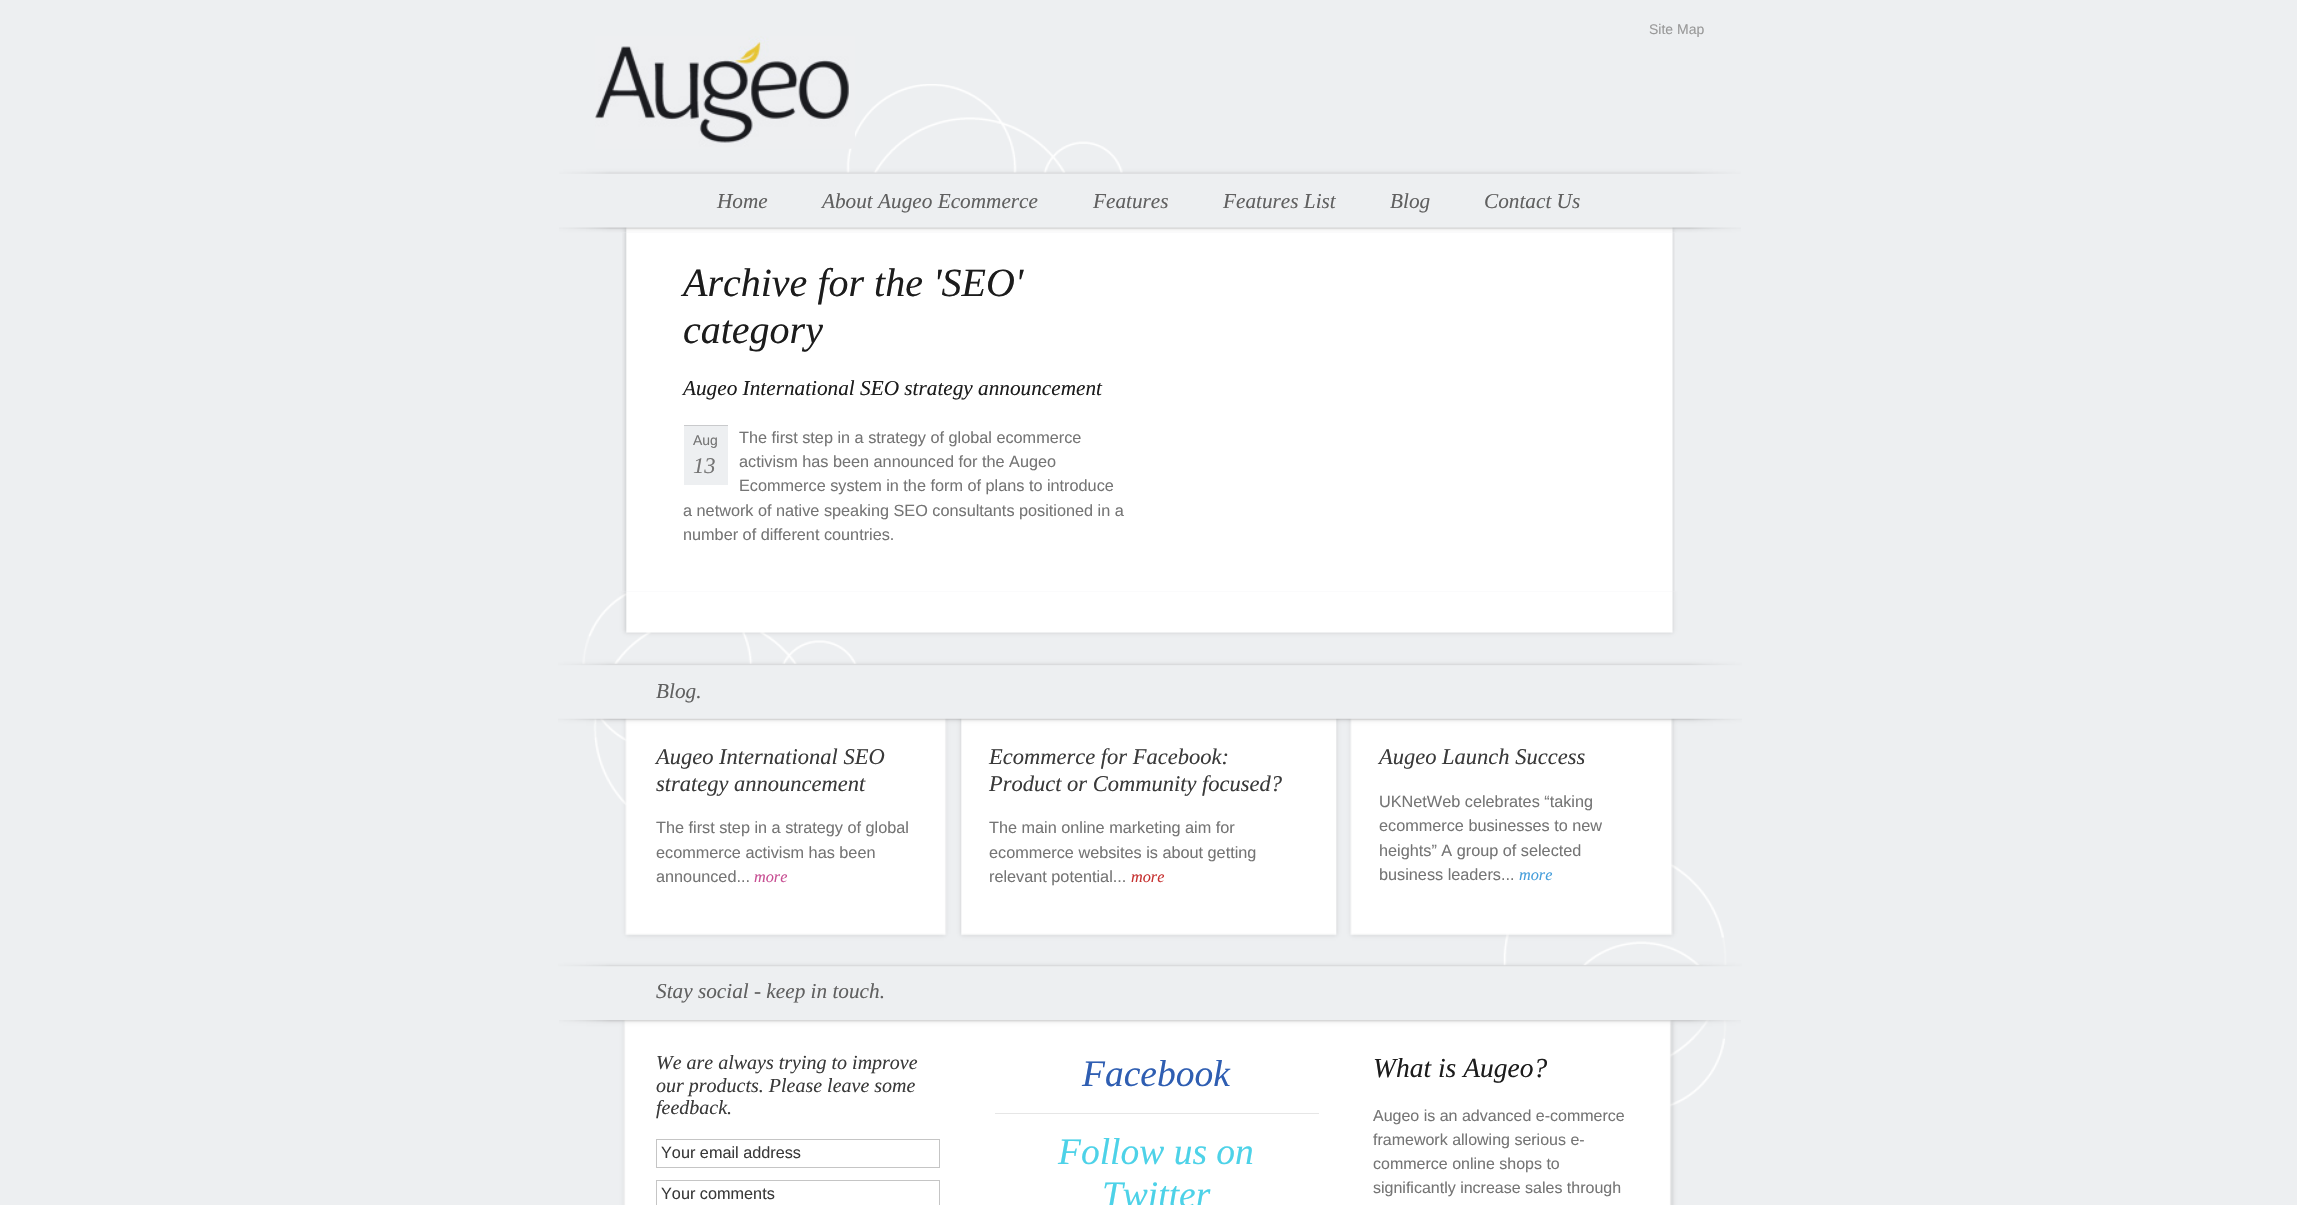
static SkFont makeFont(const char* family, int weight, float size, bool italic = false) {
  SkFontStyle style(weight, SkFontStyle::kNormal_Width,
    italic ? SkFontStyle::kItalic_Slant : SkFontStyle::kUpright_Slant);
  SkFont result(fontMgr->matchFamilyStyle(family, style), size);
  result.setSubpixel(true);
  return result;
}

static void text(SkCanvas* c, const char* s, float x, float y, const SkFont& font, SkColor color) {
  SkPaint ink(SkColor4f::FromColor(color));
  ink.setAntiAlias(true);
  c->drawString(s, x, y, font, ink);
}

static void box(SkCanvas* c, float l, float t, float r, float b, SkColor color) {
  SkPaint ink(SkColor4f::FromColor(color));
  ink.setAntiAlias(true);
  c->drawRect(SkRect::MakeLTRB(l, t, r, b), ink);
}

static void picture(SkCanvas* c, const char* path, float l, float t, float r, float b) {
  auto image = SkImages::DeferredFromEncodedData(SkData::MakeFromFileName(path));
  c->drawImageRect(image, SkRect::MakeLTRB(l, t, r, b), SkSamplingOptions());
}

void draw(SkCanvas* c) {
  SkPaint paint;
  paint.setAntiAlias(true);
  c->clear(0xffedeff1);
  picture(c, "img_01.png", 559, 84, 1741, 233);
  SkFont face1 = makeFont("Liberation Sans", 400, 14);
  text(c, "Site Map", 1649, 34, face1, 0xff999999);
  picture(c, "img_02.png", 595, 36, 855, 149);
  SkFont face2 = makeFont("Liberation Serif", 400, 21.25f, true);
  text(c, "Home", 717, 208, face2, 0xff606060);
  text(c, "About Augeo Ecommerce", 822, 208, face2, 0xff606060);
  text(c, "Features", 1093, 208, face2, 0xff606060);
  text(c, "Features List", 1223, 208, face2, 0xff606060);
  text(c, "Blog", 1390, 208, face2, 0xff606060);
  text(c, "Contact Us", 1484, 208, face2, 0xff606060);
  picture(c, "img_03.png", 622, 232, 1675, 591);
  SkFont face3 = makeFont("Liberation Serif", 400, 40, true);
  text(c, "Archive for the 'SEO'", 683, 296, face3, 0xff1c1c1c);
  text(c, "category", 683, 343, face3, 0xff1c1c1c);
  text(c, "Augeo International SEO strategy announcement", 683, 395, face2, 0xff1c1c1c);
  SkFont face4 = makeFont("Liberation Sans", 400, 16.25f);
  text(c, "The first step in a strategy of global ecommerce", 739, 443, face4, 0xff757575);
  text(c, "activism has been announced for the Augeo", 739, 467, face4, 0xff757575);
  text(c, "Ecommerce system in the form of plans to introduce", 739, 491, face4, 0xff757575);
  text(c, "a network of native speaking SEO consultants positioned in a", 683, 516, face4, 0xff757575);
  text(c, "number of different countries.", 683, 540, face4, 0xff757575);
  box(c, 684, 426, 728, 485, 0xffedeff1);
  box(c, 684, 425, 728, 426, 0xffc9cacc);
  text(c, "Aug", 693, 445, face1, 0xff757575);
  SkFont face5 = makeFont("Liberation Serif", 400, 22.5f, true);
  text(c, "13", 693, 473, face5, 0xff757575);
  picture(c, "img_04.png", 558, 591, 1742, 967);
  text(c, "Blog.", 656, 698, face2, 0xff606060);
  text(c, "Augeo International SEO", 656, 764, face5, 0xff3a3a3a);
  text(c, "strategy announcement", 656, 791, face5, 0xff3a3a3a);
  text(c, "The first step in a strategy of global", 656, 833, face4, 0xff757575);
  text(c, "ecommerce activism has been", 656, 858, face4, 0xff757575);
  text(c, "announced...", 656, 882, face4, 0xff757575);
  SkFont face6 = makeFont("Liberation Serif", 400, 16.25f, true);
  text(c, "more", 754, 882, face6, 0xffc84f93);
  text(c, "Ecommerce for Facebook:", 989, 764, face5, 0xff3a3a3a);
  text(c, "Product or Community focused?", 989, 791, face5, 0xff3a3a3a);
  text(c, "The main online marketing aim for", 989, 833, face4, 0xff757575);
  text(c, "ecommerce websites is about getting", 989, 858, face4, 0xff757575);
  text(c, "relevant potential...", 989, 882, face4, 0xff757575);
  text(c, "more", 1131, 882, face6, 0xffc63130);
  text(c, "Augeo Launch Success", 1379, 764, face5, 0xff3a3a3a);
  text(c, "UKNetWeb celebrates “taking", 1379, 807, face4, 0xff757575);
  text(c, "ecommerce businesses to new", 1379, 831, face4, 0xff757575);
  text(c, "heights” A group of selected", 1379, 856, face4, 0xff757575);
  text(c, "business leaders...", 1379, 880, face4, 0xff757575);
  text(c, "more", 1519, 880, face6, 0xff459edb);
  picture(c, "img_05.png", 559, 1020, 1741, 1205);
  text(c, "Stay social - keep in touch.", 656, 998, face2, 0xff606060);
  SkFont face7 = makeFont("Liberation Serif", 400, 20, true);
  text(c, "We are always trying to improve", 656, 1069, face7, 0xff3a3a3a);
  text(c, "our products. Please leave some", 656, 1092, face7, 0xff3a3a3a);
  text(c, "feedback.", 656, 1114, face7, 0xff3a3a3a);
  paint.setStyle(SkPaint::kStroke_Style);
  paint.setStrokeWidth(1);
  paint.setColor(0xffc5c5c5);
  c->drawRect(SkRect::MakeLTRB(656.5f, 1139.5f, 939.5f, 1167.5f), paint);
  text(c, "Your email address", 661, 1158, face4, 0xff3a3a3a);
  c->drawRect(SkRect::MakeLTRB(656.5f, 1180.5f, 939.5f, 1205.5f), paint);
  text(c, "Your comments", 661, 1199, face4, 0xff3a3a3a);
  SkFont face8 = makeFont("Liberation Serif", 400, 37.5f, true);
  text(c, "Facebook", 1082, 1086, face8, 0xff2f5eb2);
  box(c, 995, 1113, 1319, 1114, 0xffe6e6e6);
  text(c, "Follow us on", 1058, 1164, face8, 0xff4dd2e8);
  text(c, "Twitter", 1102, 1207, face8, 0xff4dd2e8);
  SkFont face9 = makeFont("Liberation Serif", 400, 27.5f, true);
  text(c, "What is Augeo?", 1373, 1077, face9, 0xff1c1c1c);
  SkFont face10 = makeFont("Liberation Sans", 400, 16);
  text(c, "Augeo is an advanced e-commerce", 1373, 1121, face10, 0xff757575);
  text(c, "framework allowing serious e-", 1373, 1145, face10, 0xff757575);
  text(c, "commerce online shops to", 1373, 1169, face10, 0xff757575);
  text(c, "significantly increase sales through", 1373, 1193, face10, 0xff757575);
}
